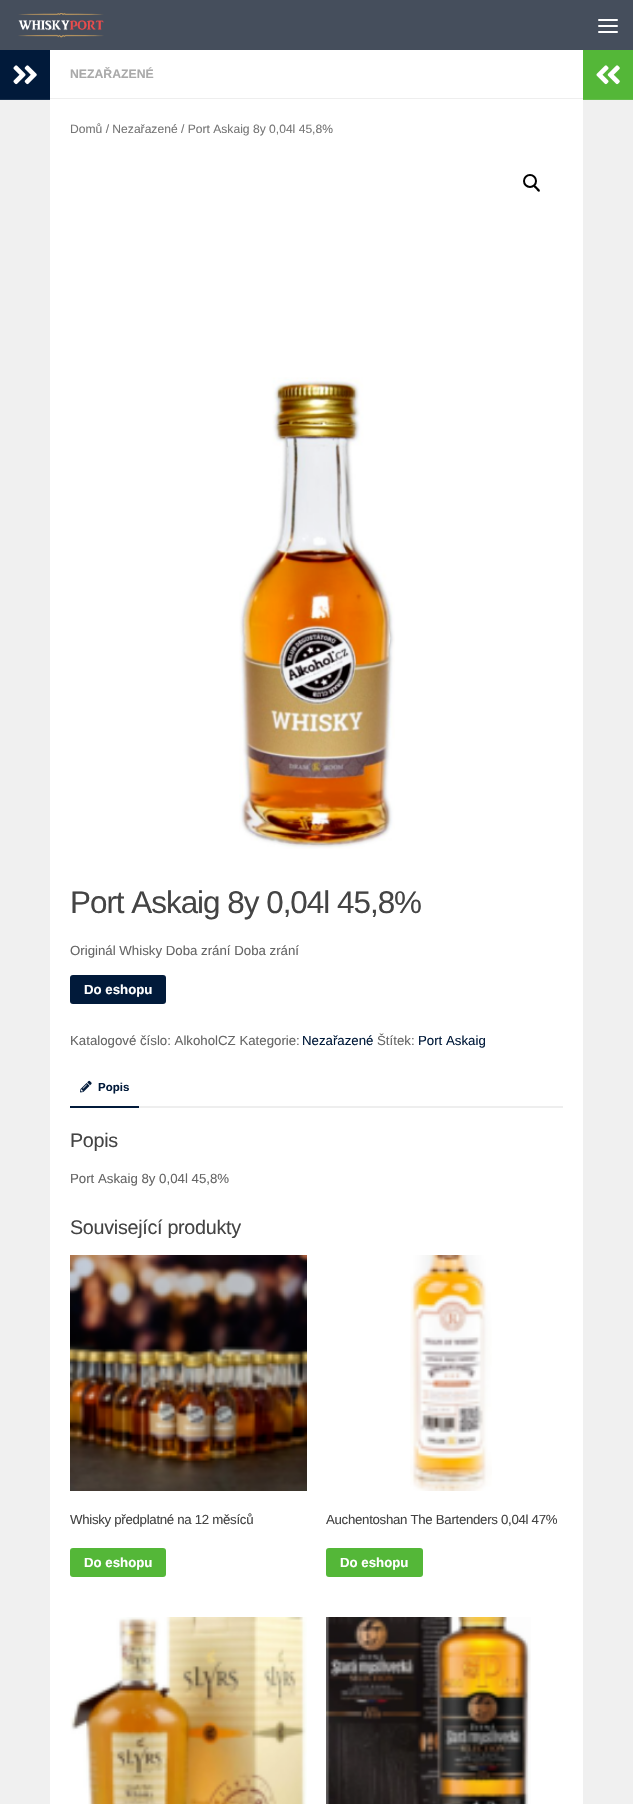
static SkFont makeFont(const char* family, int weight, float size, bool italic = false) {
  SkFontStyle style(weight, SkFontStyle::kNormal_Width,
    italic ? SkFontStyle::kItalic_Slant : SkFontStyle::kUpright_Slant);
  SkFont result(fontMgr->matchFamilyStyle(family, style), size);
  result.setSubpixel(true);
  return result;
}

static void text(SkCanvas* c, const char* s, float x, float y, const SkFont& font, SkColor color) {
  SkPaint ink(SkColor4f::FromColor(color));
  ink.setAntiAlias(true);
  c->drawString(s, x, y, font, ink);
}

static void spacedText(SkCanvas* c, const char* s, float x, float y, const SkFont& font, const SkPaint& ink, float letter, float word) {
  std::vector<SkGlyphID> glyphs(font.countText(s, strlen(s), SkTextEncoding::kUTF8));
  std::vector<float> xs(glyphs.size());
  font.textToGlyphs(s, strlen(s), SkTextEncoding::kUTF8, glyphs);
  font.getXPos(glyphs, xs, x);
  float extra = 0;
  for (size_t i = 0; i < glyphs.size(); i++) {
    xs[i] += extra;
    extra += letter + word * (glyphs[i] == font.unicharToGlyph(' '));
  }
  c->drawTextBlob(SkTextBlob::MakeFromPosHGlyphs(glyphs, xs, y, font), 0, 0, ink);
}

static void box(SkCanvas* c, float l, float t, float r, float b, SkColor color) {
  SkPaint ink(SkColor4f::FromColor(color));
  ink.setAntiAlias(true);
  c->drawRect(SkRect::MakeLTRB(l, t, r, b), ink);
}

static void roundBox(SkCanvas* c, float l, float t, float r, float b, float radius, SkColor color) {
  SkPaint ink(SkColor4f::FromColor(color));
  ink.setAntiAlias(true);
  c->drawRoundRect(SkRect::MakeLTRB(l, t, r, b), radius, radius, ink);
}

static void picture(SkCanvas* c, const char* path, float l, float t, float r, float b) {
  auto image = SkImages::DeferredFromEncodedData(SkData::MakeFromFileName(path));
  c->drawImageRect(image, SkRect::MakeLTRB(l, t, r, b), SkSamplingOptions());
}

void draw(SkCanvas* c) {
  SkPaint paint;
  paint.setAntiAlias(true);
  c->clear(0xffffffff);
  box(c, 0, 0, 633, 50, 0xff454e5c);
  picture(c, "img_01.png", 18, 13, 104, 38);
  roundBox(c, 598, 19, 618, 21, 1, 0xffffffff);
  roundBox(c, 598, 25, 618, 27, 1, 0xffffffff);
  roundBox(c, 598, 31, 618, 33, 1, 0xffffffff);
  box(c, 0, 100, 50, 1804, 0xfff0f0f0);
  box(c, 0, 50, 50, 99, 0xff011a3a);
  box(c, 0, 99, 50, 100, 0xff1a314e);
  picture(c, "img_02.png", 13, 65, 37, 85);
  box(c, 50, 98, 583, 99, 0xffeeeeee);
  SkFont face1 = makeFont("Liberation Sans", 700, 12.25f);
  text(c, "NEZAŘAZENÉ", 70, 78, face1, 0xffaaaaaa);
  SkFont face2 = makeFont("Liberation Sans", 400, 12.1f);
  text(c, "Domů / Nezařazené / Port Askaig 8y 0,04l 45,8%", 70, 133, face2, 0xff767676);
  paint.setStyle(SkPaint::kStroke_Style);
  paint.setStrokeWidth(2);
  paint.setColor(0xff000000);
  c->drawCircle(530, 181, 6, paint);
  paint.setStyle(SkPaint::kFill_Style);
  c->drawPath(SkPathBuilder().moveTo(534, 185.5f).cubicTo(535, 184.5f, 537, 187, 537.5f, 187.5f).cubicTo(538, 188.5f, 541, 190, 539.5f, 191.5f).cubicTo(538.5f, 192.5f, 536.5f, 190, 536, 189).cubicTo(535.5f, 188.5f, 533, 187, 534, 185.5f).close().detach(), paint);
  picture(c, "img_03.png", 239, 377, 395, 849);
  SkFont face3 = makeFont("Liberation Sans", 400, 31.4f);
  paint.setColor(0xff444444);
  spacedText(c, "Port Askaig 8y 0,04l 45,8%", 70, 913, face3, paint, -1, 0);
  SkFont face4 = makeFont("Liberation Sans", 400, 13.25f);
  text(c, "Originál Whisky Doba zrání Doba zrání", 70, 955, face4, 0xff666666);
  roundBox(c, 70, 975, 166, 1004, 3, 0xff011a3a);
  SkFont face5 = makeFont("Liberation Sans", 700, 13.25f);
  text(c, "Do eshopu", 84, 994, face5, 0xffffffff);
  text(c, "Katalogové číslo: AlkoholCZ Kategorie:", 70, 1045, face4, 0xff666666);
  text(c, "Nezařazené", 302, 1045, face4, 0xff011a3a);
  text(c, "Štítek:", 377, 1045, face4, 0xff666666);
  text(c, "Port Askaig", 418, 1045, face4, 0xff011a3a);
  box(c, 139, 1106, 563, 1108, 0xffeeeeee);
  box(c, 70, 1106, 139, 1108, 0xff011a3a);
  picture(c, "img_04.png", 80, 1080, 92, 1093);
  SkFont face6 = makeFont("Liberation Sans", 700, 11.5f);
  text(c, "Popis", 98, 1091, face6, 0xff011a3a);
  SkFont face7 = makeFont("Liberation Sans", 400, 19.75f);
  spacedText(c, "Popis", 70, 1147, face7, paint, -0.3f, 0);
  text(c, "Port Askaig 8y 0,04l 45,8%", 70, 1183, face4, 0xff666666);
  spacedText(c, "Související produkty", 70, 1234, face7, paint, -0.3f, 0);
  picture(c, "img_05.png", 70, 1255, 307, 1491);
  spacedText(c, "Whisky předplatné na 12 měsíců", 70, 1524, face4, paint, -0.3f, 0);
  roundBox(c, 70, 1548, 166, 1577, 3, 0xff54b738);
  text(c, "Do eshopu", 84, 1567, face5, 0xffffffff);
  picture(c, "img_06.png", 410, 1255, 492, 1491);
  spacedText(c, "Auchentoshan The Bartenders 0,04l 47%", 326, 1524, face4, paint, -0.3f, 0);
  roundBox(c, 326, 1548, 423, 1577, 3, 0xff54b738);
  text(c, "Do eshopu", 340, 1567, face5, 0xffffffff);
  picture(c, "img_07.png", 70, 1617, 307, 1804);
  picture(c, "img_08.png", 326, 1617, 531, 1804);
  box(c, 583, 50, 633, 99, 0xff54b738);
  box(c, 583, 99, 633, 100, 0xff65be4c);
  picture(c, "img_09.png", 596, 65, 620, 85);
  box(c, 583, 100, 633, 1804, 0xfff0f0f0);
}
